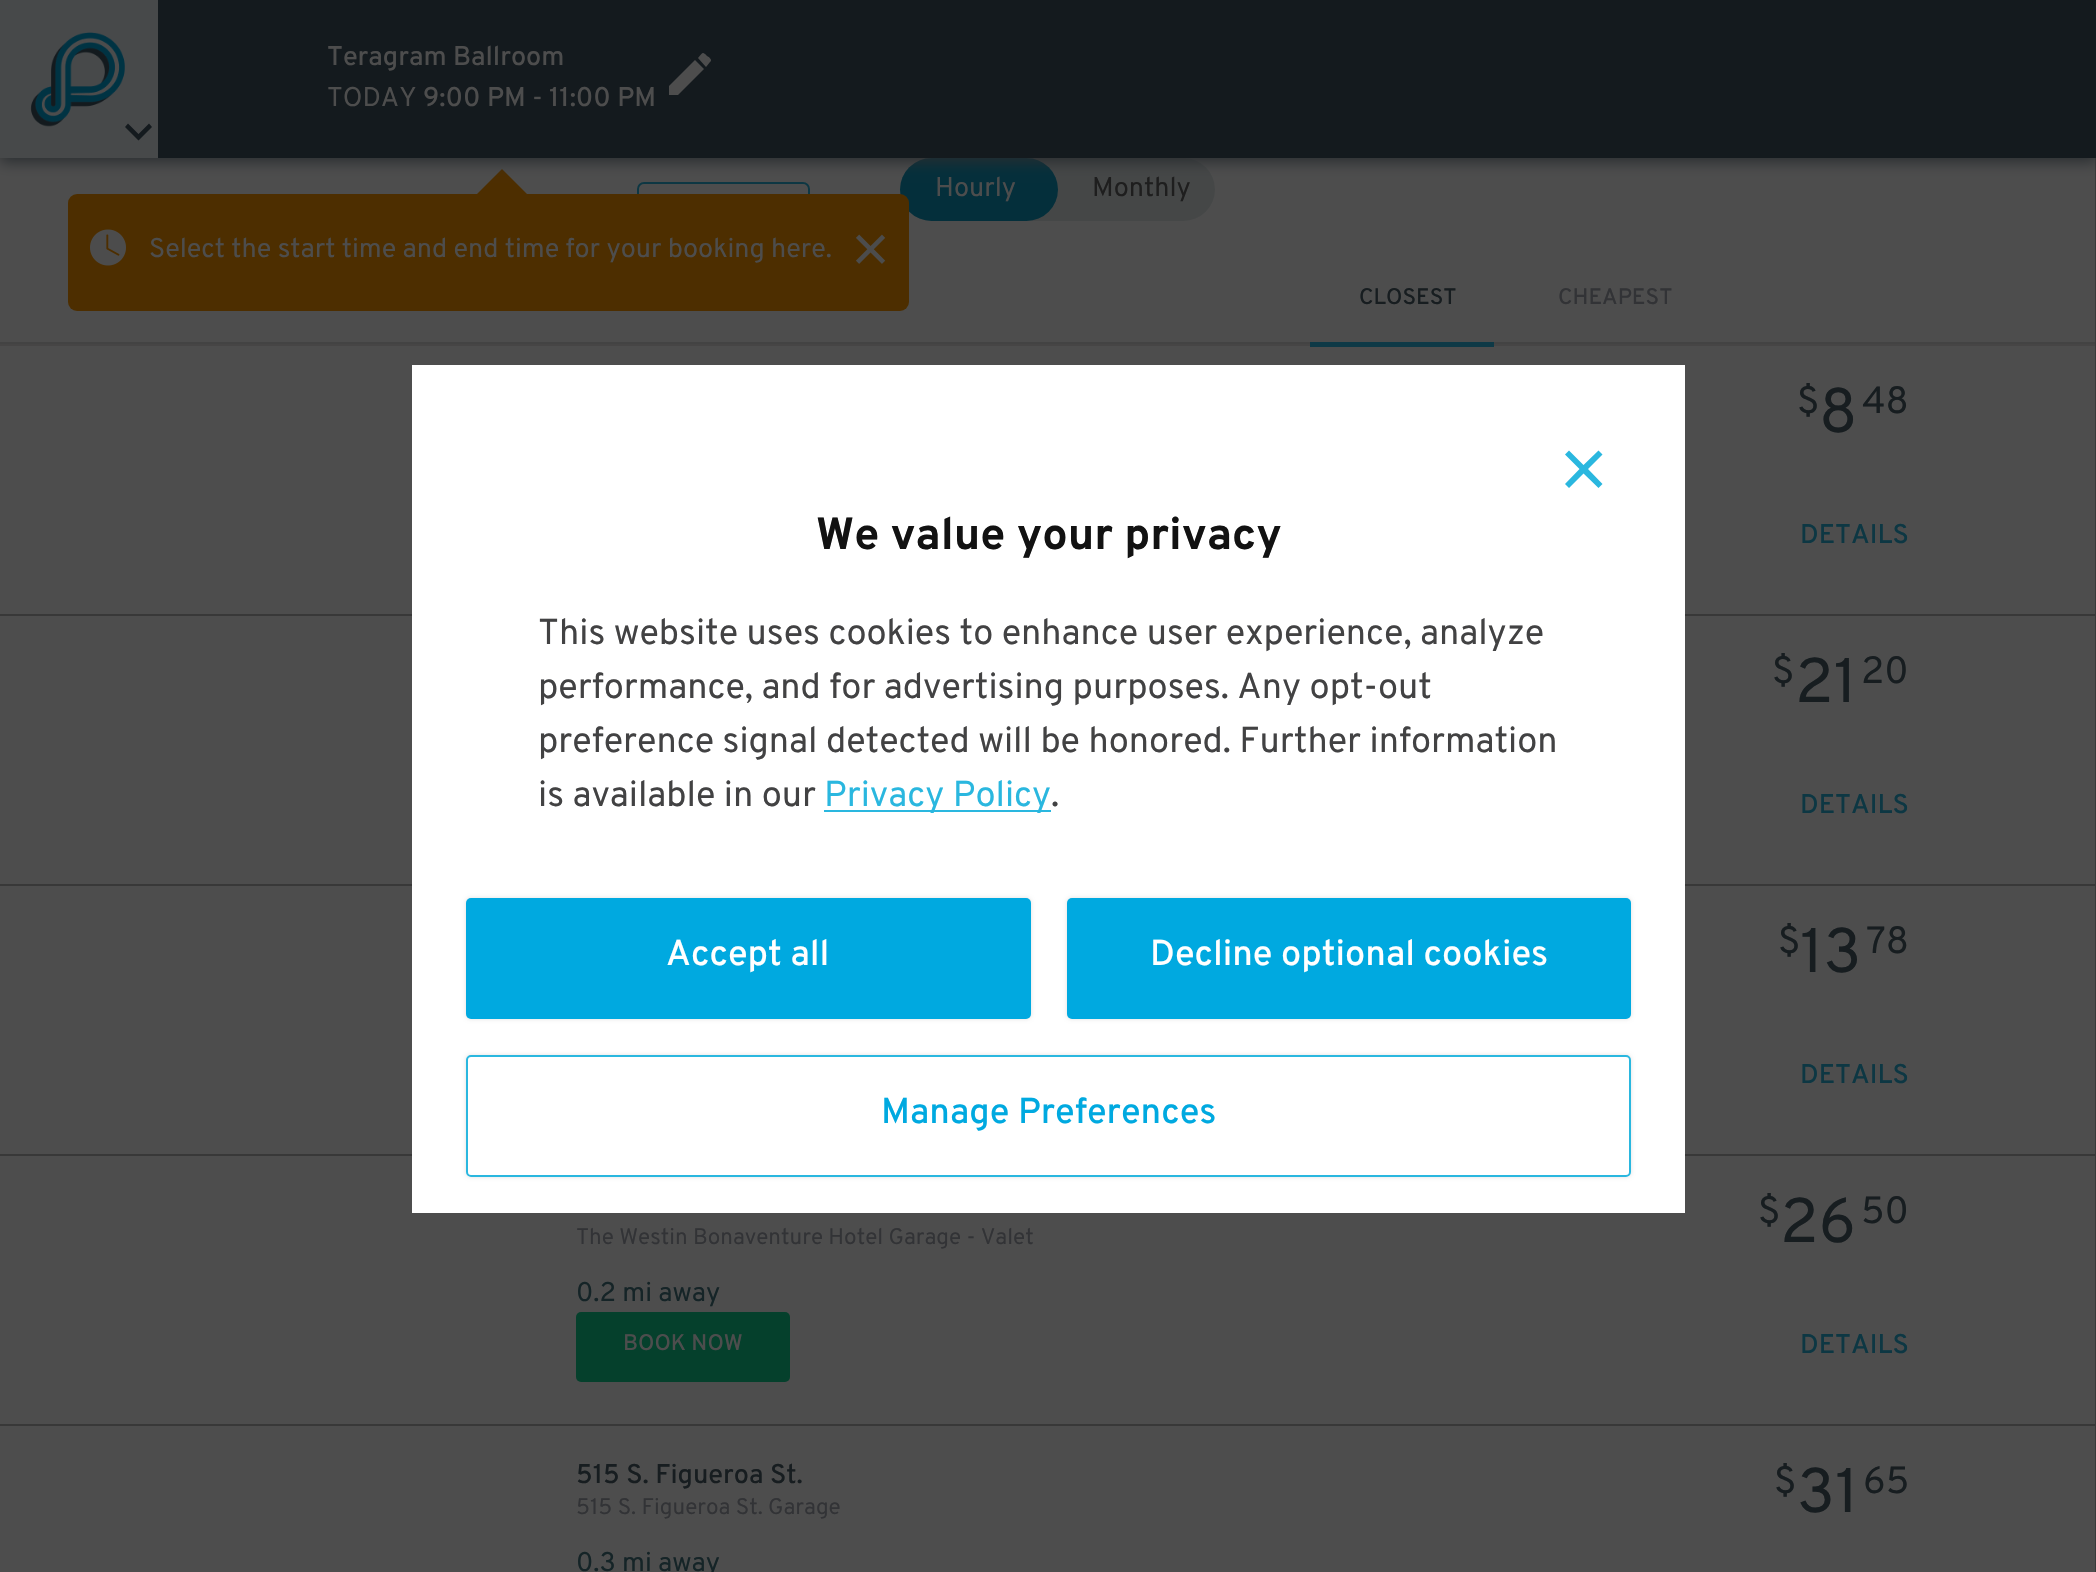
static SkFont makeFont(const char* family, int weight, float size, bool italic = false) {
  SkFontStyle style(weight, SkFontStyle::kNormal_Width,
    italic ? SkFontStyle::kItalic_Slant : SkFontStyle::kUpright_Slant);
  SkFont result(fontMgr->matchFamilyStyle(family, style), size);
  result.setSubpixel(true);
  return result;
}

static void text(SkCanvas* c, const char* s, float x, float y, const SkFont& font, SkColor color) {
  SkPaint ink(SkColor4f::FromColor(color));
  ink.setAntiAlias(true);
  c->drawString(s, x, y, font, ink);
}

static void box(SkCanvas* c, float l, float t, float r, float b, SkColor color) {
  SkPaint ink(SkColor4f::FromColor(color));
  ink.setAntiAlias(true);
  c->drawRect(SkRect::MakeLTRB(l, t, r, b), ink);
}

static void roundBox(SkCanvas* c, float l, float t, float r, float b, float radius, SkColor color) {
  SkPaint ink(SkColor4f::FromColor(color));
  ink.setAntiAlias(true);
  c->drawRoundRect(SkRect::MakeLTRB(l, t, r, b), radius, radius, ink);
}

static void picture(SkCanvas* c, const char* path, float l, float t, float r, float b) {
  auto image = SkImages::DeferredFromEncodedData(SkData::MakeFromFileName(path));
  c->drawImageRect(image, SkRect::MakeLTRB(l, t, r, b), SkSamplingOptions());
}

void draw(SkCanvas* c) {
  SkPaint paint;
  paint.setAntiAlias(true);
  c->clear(0xff4d4d4d);
  paint.setStyle(SkPaint::kStroke_Style);
  paint.setStrokeWidth(2);
  paint.setColor(0xff0d3743);
  c->drawRoundRect(SkRect::MakeLTRB(638, 183, 809, 229), 6, 6, paint);
  roundBox(c, 900, 158, 1215, 221, 31.5f, 0xff454747);
  roundBox(c, 900, 158, 1058, 221, 31.5f, 0xff042f3b);
  roundBox(c, 68, 194, 909, 311, 9, 0xff4d2e00);
  paint.setStyle(SkPaint::kFill_Style);
  paint.setColor(0xff4d2e00);
  c->drawPath(SkPathBuilder().moveTo(529, 196).lineTo(475, 196).lineTo(502, 169).close().detach(), paint);
  box(c, 2095, 158, 2096, 1572, 0xff3a3a3a);
  paint.setColor(0xff282c2f);
  paint.setMaskFilter(SkMaskFilter::MakeBlur(kNormal_SkBlurStyle, 7));
  c->drawRect(SkRect::MakeLTRB(0, 5, 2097, 162), paint);
  paint.setMaskFilter(nullptr);
  box(c, 158, 0, 2096, 158, 0xff141a1e);
  box(c, 0, 0, 158, 158, 0xff47494a);
  picture(c, "img_01.png", 30, 32, 125, 127);
  paint.setColor(0xff141a1e);
  c->drawPath(SkPathBuilder().moveTo(149, 123.5f).lineTo(152, 127).lineTo(138.5f, 140.5f).lineTo(125, 127).lineTo(128, 123.5f).lineTo(138.5f, 134).close().detach(), paint);
  SkFont face1 = makeFont("Overpass", 500, 27);
  text(c, "Teragram Ballroom", 327, 65, face1, 0xff4d4d4d);
  SkFont face2 = makeFont("Overpass", 400, 27);
  text(c, "TODAY", 327, 106, face2, 0xff4d4d4d);
  text(c, "9:00 PM", 423, 106, face1, 0xff4d4d4d);
  text(c, "-", 532, 106, face2, 0xff4d4d4d);
  text(c, "11:00 PM", 549, 106, face1, 0xff4d4d4d);
  paint.setColor(0xff4d4d4d);
  c->drawPath(SkPathBuilder().moveTo(669, 86).lineTo(669, 95).lineTo(678, 95).lineTo(704, 69).lineTo(695, 60).close().moveTo(710, 62).cubicTo(713, 60, 709, 57, 707, 56).cubicTo(702, 51, 703, 53, 698, 58).lineTo(706, 67).close().detach(), paint);
  picture(c, "img_02.png", 90, 229, 126, 266);
  text(c, "Select the start time and end time for your booking here.", 149, 257, face2, 0xff4d4d4d);
  picture(c, "img_03.png", 856, 234, 886, 264);
  text(c, "Hourly", 935, 196, face2, 0xff4d4d4d);
  text(c, "Monthly", 1092, 196, face2, 0xff1e1e1e);
  box(c, 0, 344, 2095, 346, 0xff464545);
  box(c, 0, 342, 2095, 344, 0xff434343);
  SkFont face3 = makeFont("Overpass", 500, 22.5f);
  text(c, "CLOSEST", 1359, 304, face3, 0xff171d20);
  text(c, "CHEAPEST", 1558, 304, face3, 0xff323336);
  box(c, 1310, 342, 1494, 347, 0xff0e3946);
  box(c, 0, 614, 2095, 616, 0xff383838);
  SkFont face4 = makeFont("Overpass", 400, 38);
  text(c, "$", 1797, 413, face4, 0xff171d20);
  SkFont face5 = makeFont("Overpass", 400, 63);
  text(c, "8", 1819, 432, face5, 0xff171d20);
  text(c, "48", 1862, 413, face4, 0xff171d20);
  text(c, "DETAILS", 1800, 543, face1, 0xff0d3743);
  box(c, 0, 884, 2095, 886, 0xff383838);
  text(c, "$", 1772, 683, face4, 0xff171d20);
  text(c, "21", 1795, 702, face5, 0xff171d20);
  text(c, "20", 1861, 683, face4, 0xff171d20);
  text(c, "DETAILS", 1800, 813, face1, 0xff0d3743);
  box(c, 0, 1154, 2095, 1156, 0xff383838);
  text(c, "$", 1778, 953, face4, 0xff171d20);
  text(c, "13", 1800, 972, face5, 0xff171d20);
  text(c, "78", 1866, 953, face4, 0xff171d20);
  text(c, "DETAILS", 1800, 1083, face1, 0xff0d3743);
  box(c, 0, 1424, 2095, 1426, 0xff383838);
  text(c, "$", 1758, 1223, face4, 0xff171d20);
  text(c, "26", 1780, 1242, face5, 0xff171d20);
  text(c, "50", 1861, 1223, face4, 0xff171d20);
  SkFont face6 = makeFont("Overpass", 400, 22.5f);
  text(c, "The Westin Bonaventure Hotel Garage - Valet", 576, 1244, face6, 0xff323336);
  text(c, "0.2 mi away", 576, 1301, face2, 0xff152427);
  roundBox(c, 576, 1312, 790, 1382, 5, 0xff05402c);
  text(c, "BOOK NOW", 623, 1350, face3, 0xff4d4d4d);
  text(c, "DETAILS", 1800, 1353, face1, 0xff0d3743);
  text(c, "515 S. Figueroa St.", 576, 1483, face1, 0xff171d20);
  text(c, "515 S. Figueroa St. Garage", 576, 1514, face6, 0xff323336);
  text(c, "0.3 mi away", 576, 1571, face2, 0xff152427);
  text(c, "$", 1774, 1493, face4, 0xff171d20);
  text(c, "31", 1797, 1512, face5, 0xff171d20);
  text(c, "65", 1863, 1493, face4, 0xff171d20);
  box(c, 412, 365, 1685, 1213, 0xffffffff);
  paint.setColor(0xff2ab7df);
  c->drawPath(SkPathBuilder().moveTo(1583.5f, 465).lineTo(1598.5f, 450.5f).lineTo(1602.5f, 454.5f).lineTo(1588, 469).lineTo(1602.5f, 484).lineTo(1598.5f, 488).lineTo(1583.5f, 473.5f).lineTo(1569, 488).lineTo(1565, 484).lineTo(1579.5f, 469).lineTo(1565, 454.5f).lineTo(1569, 450.5f).close().detach(), paint);
  SkFont face7 = makeFont("Overpass", 700, 45);
  text(c, "We value your privacy", 816, 549, face7, 0xff121212);
  SkFont face8 = makeFont("Overpass", 400, 36);
  text(c, "This website uses cookies to enhance user experience, analyze", 538, 644, face8, 0xff424243);
  text(c, "performance, and for advertising purposes. Any opt-out", 538, 698, face8, 0xff424243);
  text(c, "preference signal detected will be honored. Further information", 538, 752, face8, 0xff424243);
  text(c, "is available in our", 538, 806, face8, 0xff424243);
  box(c, 824, 810, 1051, 812, 0xff2ab7df);
  text(c, "Privacy Policy", 824, 806, face8, 0xff2ab7df);
  text(c, ".", 1051, 806, face8, 0xff424243);
  paint.setColor(0x1f000000);
  paint.setMaskFilter(SkMaskFilter::MakeBlur(kNormal_SkBlurStyle, 2));
  c->drawRoundRect(SkRect::MakeLTRB(466, 898, 1031, 1019), 5, 5, paint);
  paint.setMaskFilter(nullptr);
  roundBox(c, 466, 898, 1031, 1019, 5, 0xff00a9e0);
  SkFont face9 = makeFont("Overpass", 500, 36);
  text(c, "Accept all", 666, 965, face9, 0xffffffff);
  paint.setMaskFilter(SkMaskFilter::MakeBlur(kNormal_SkBlurStyle, 2));
  c->drawRoundRect(SkRect::MakeLTRB(1067, 898, 1631, 1019), 5, 5, paint);
  paint.setMaskFilter(nullptr);
  roundBox(c, 1067, 898, 1631, 1019, 5, 0xff00a9e0);
  text(c, "Decline optional cookies", 1150, 965, face9, 0xffffffff);
  c->save();
  c->clipPath(SkPathBuilder(SkPathFillType::kEvenOdd).moveTo(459, 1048).lineTo(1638, 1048).lineTo(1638, 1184).lineTo(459, 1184).close().moveTo(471, 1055).lineTo(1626, 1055).cubicTo(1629, 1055, 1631, 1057, 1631, 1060).lineTo(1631, 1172).cubicTo(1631, 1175, 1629, 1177, 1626, 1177).lineTo(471, 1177).cubicTo(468, 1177, 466, 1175, 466, 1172).lineTo(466, 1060).cubicTo(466, 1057, 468, 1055, 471, 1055).close().detach(), true);
  paint.setMaskFilter(SkMaskFilter::MakeBlur(kNormal_SkBlurStyle, 2));
  c->drawRoundRect(SkRect::MakeLTRB(466, 1055, 1631, 1177), 5, 5, paint);
  paint.setMaskFilter(nullptr);
  c->restore();
  paint.setStyle(SkPaint::kStroke_Style);
  paint.setColor(0xff2ab7df);
  c->drawRoundRect(SkRect::MakeLTRB(467, 1056, 1630, 1176), 4, 4, paint);
  text(c, "Manage Preferences", 881, 1123, face9, 0xff00a9e0);
}
